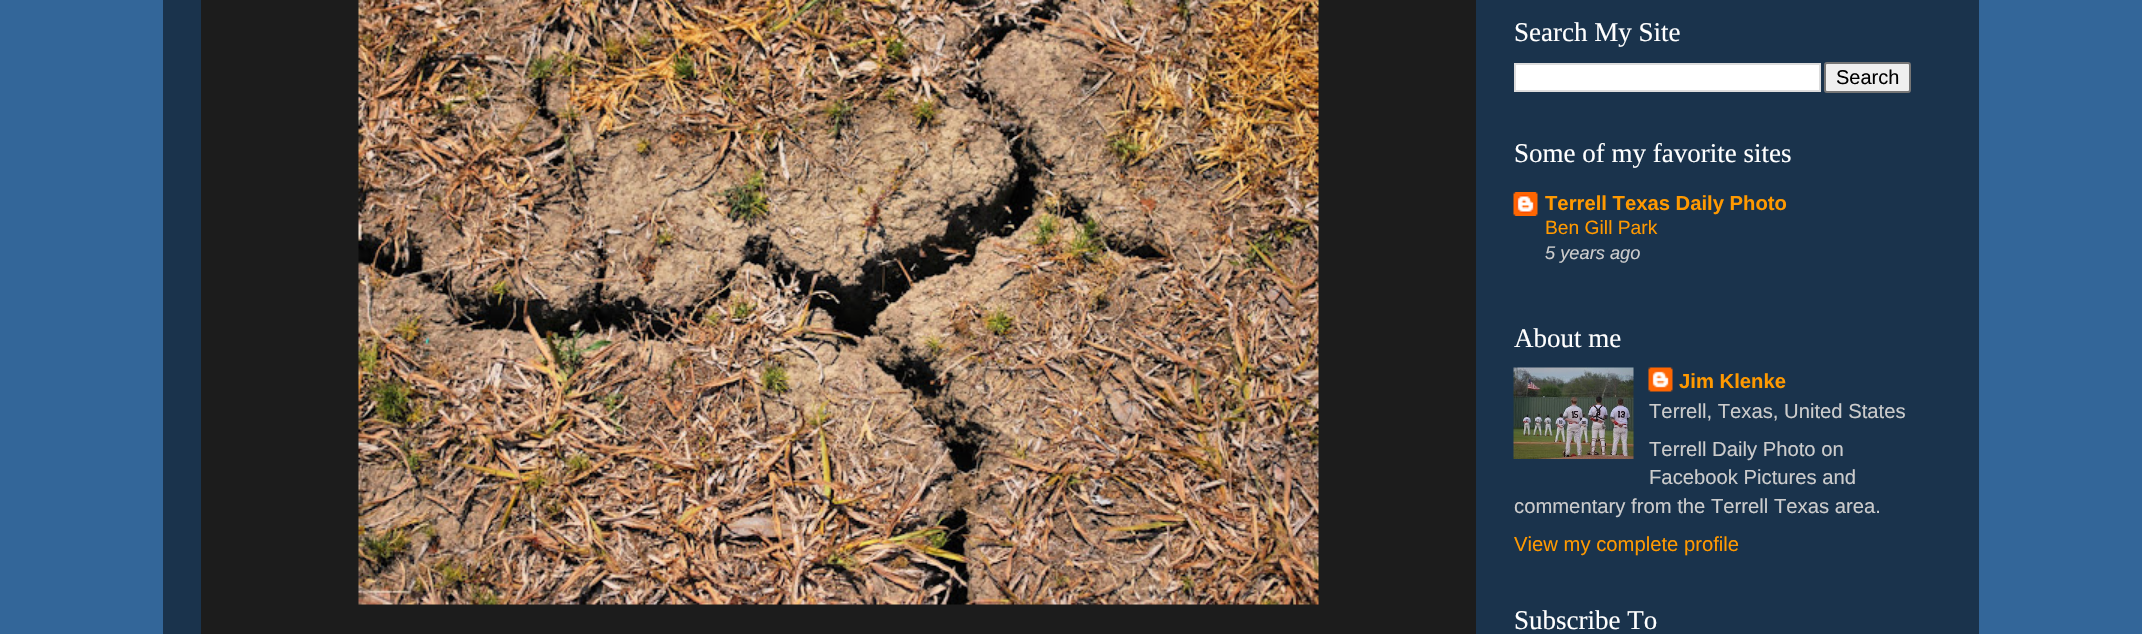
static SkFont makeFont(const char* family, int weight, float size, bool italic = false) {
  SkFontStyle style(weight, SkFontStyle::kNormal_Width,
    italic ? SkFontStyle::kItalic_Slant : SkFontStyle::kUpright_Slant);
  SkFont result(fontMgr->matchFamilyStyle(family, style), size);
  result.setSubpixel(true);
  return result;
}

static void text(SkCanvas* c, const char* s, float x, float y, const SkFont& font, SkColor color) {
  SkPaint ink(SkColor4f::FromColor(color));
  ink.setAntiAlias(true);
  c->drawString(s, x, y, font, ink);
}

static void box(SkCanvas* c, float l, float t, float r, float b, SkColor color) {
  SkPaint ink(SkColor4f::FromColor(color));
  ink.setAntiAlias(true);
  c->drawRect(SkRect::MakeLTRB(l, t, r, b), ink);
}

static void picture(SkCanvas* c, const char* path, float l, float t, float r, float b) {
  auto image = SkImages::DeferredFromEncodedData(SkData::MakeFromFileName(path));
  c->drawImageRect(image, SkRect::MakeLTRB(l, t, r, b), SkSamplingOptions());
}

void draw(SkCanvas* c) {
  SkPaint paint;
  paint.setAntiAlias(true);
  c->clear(0xff336699);
  box(c, 163, 0, 1979, 634, 0x80000000);
  box(c, 201, 0, 1476, 634, 0xff1c1c1c);
  picture(c, "img_01.png", 358, 0, 1319, 605);
  SkFont face1 = makeFont("Liberation Serif", 400, 27);
  text(c, "Search My Site", 1514, 41, face1, 0xffffffff);
  paint.setColor(0xffffffff);
  c->drawRect(SkRect::MakeLTRB(1515, 64, 1820, 91), paint);
  paint.setStyle(SkPaint::kStroke_Style);
  paint.setStrokeWidth(2);
  paint.setColor(0xffdddddd);
  c->drawRect(SkRect::MakeLTRB(1515, 64, 1820, 91), paint);
  paint.setStyle(SkPaint::kFill_Style);
  paint.setColor(0xffefefef);
  c->drawRoundRect(SkRect::MakeLTRB(1825, 63, 1910, 92), 2, 2, paint);
  paint.setStyle(SkPaint::kStroke_Style);
  paint.setColor(0xff767676);
  c->drawRoundRect(SkRect::MakeLTRB(1825, 63, 1910, 92), 2, 2, paint);
  SkFont face2 = makeFont("Liberation Sans", 400, 20);
  text(c, "Search", 1836, 84, face2, 0xff000000);
  text(c, "Some of my favorite sites", 1514, 162, face1, 0xffffffff);
  picture(c, "img_02.png", 1513, 192, 1538, 216);
  SkFont face3 = makeFont("Liberation Sans", 700, 20.25f);
  text(c, "Terrell Texas Daily Photo", 1545, 210, face3, 0xffff9900);
  SkFont face4 = makeFont("Liberation Sans", 400, 19.25f);
  text(c, "Ben Gill Park", 1545, 234, face4, 0xffff9900);
  SkFont face5 = makeFont("Liberation Sans", 400, 18.25f, true);
  text(c, "5 years ago", 1545, 259, face5, 0xffcccccc);
  text(c, "About me", 1514, 347, face1, 0xffffffff);
  picture(c, "img_03.png", 1513, 367, 1634, 459);
  picture(c, "img_04.png", 1648, 367, 1673, 392);
  text(c, "Jim Klenke", 1679, 388, face3, 0xffff9900);
  SkFont face6 = makeFont("Liberation Sans", 400, 20.25f);
  text(c, "Terrell, Texas, United States", 1649, 418, face6, 0xffcccccc);
  text(c, "Terrell Daily Photo on", 1649, 456, face6, 0xffcccccc);
  text(c, "Facebook Pictures and", 1649, 484, face6, 0xffcccccc);
  text(c, "commentary from the Terrell Texas area.", 1514, 513, face6, 0xffcccccc);
  text(c, "View my complete profile", 1514, 551, face6, 0xffff9900);
  text(c, "Subscribe To", 1514, 629, face1, 0xffffffff);
}
